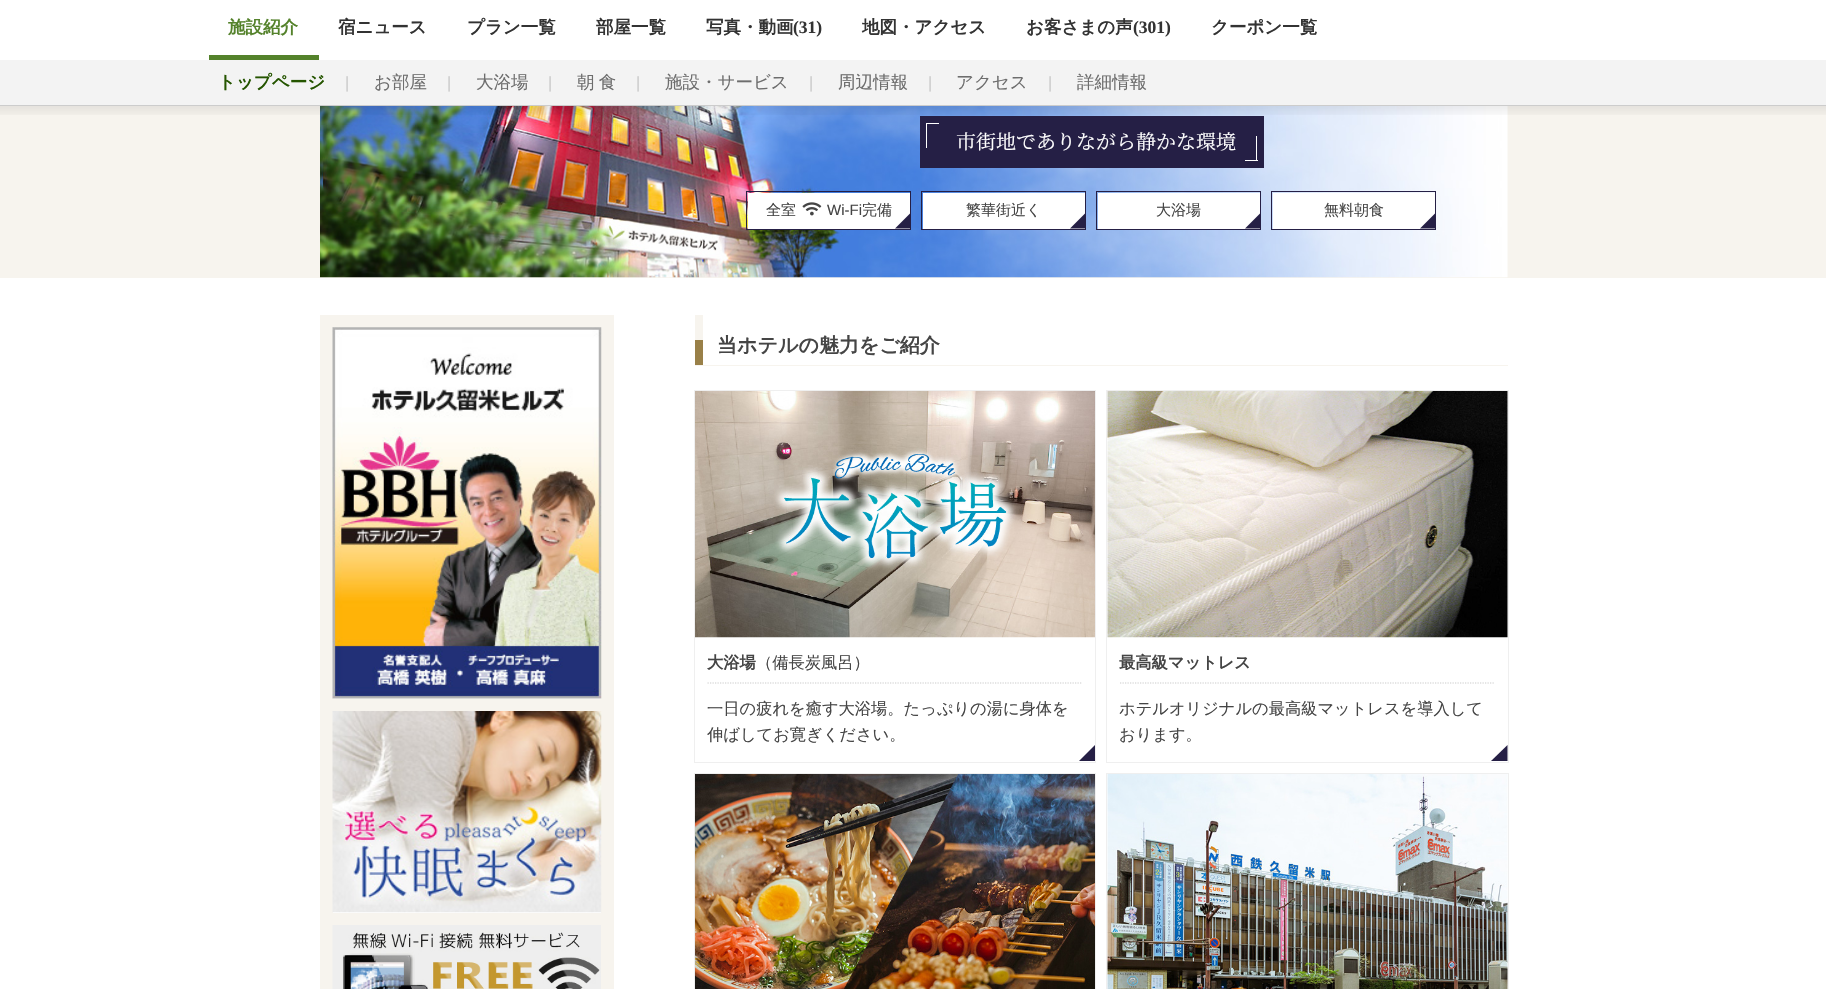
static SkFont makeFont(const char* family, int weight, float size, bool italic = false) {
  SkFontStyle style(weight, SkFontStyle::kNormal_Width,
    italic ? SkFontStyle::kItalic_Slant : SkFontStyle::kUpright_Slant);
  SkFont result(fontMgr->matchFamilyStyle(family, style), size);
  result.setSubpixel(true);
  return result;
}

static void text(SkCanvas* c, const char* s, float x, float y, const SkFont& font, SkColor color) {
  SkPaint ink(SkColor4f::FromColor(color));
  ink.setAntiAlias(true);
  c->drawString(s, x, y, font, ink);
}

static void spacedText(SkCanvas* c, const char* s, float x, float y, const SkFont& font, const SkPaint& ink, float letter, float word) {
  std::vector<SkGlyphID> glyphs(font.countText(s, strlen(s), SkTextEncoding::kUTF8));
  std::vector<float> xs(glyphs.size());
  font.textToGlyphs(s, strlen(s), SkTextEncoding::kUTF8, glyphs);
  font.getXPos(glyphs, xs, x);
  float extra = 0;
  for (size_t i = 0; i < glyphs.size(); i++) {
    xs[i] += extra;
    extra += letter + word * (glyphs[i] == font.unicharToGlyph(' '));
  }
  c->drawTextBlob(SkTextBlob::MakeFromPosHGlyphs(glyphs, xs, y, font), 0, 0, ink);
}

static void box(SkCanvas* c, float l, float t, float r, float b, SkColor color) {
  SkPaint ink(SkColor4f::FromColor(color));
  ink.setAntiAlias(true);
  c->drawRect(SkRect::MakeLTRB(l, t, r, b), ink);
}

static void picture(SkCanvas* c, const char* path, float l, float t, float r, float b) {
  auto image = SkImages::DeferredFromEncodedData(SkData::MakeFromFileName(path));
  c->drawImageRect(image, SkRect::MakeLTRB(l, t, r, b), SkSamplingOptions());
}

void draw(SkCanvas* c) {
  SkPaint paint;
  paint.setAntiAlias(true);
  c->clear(0xffffffff);
  box(c, 209, 55, 319, 60, 0xff54822b);
  SkFont face1 = makeFont("WenQuanYi Zen Hei", 700, 17.5f);
  text(c, "施設紹介", 228, 33, face1, 0xff54822b);
  text(c, "宿ニュース", 338, 33, face1, 0xff333333);
  text(c, "プラン一覧", 467, 33, face1, 0xff333333);
  text(c, "部屋一覧", 596, 33, face1, 0xff333333);
  text(c, "写真・動画", 706, 33, face1, 0xff333333);
  SkFont face2 = makeFont("Liberation Serif", 700, 17.5f);
  text(c, "(31)", 793, 33, face2, 0xff333333);
  text(c, "地図・アクセス", 862, 33, face1, 0xff333333);
  text(c, "お客さまの声", 1026, 33, face1, 0xff333333);
  text(c, "(301)", 1133, 33, face2, 0xff333333);
  text(c, "クーポン一覧", 1211, 33, face1, 0xff333333);
  box(c, 0, 106, 1826, 278, 0xfff7f4ee);
  picture(c, "img_01.png", 320, 106, 1508, 278);
  {
    const SkColor colors[] = {0x00000000, 0x12000000};
    const float stops[] = {0, 1};
    const SkPoint ends[] = {{913, 119}, {913, 106}};
    paint.setShader(SkGradientShader::MakeLinear(ends, colors, stops, 2, SkTileMode::kClamp));
    paint.setAlpha(255);
  }
  c->drawRect(SkRect::MakeLTRB(0, 106, 1826, 115), paint);
  box(c, 0, 60, 1826, 105, 0xfff3f3f3);
  box(c, 0, 105, 1826, 106, 0xffcccccc);
  text(c, "トップページ", 218, 88, face1, 0xff255500);
  SkFont face3 = makeFont("Liberation Sans", 400, 16.25f);
  text(c, "|", 345, 88, face3, 0xffcccccc);
  SkFont face4 = makeFont("WenQuanYi Zen Hei", 500, 17.5f);
  text(c, "お部屋", 374, 88, face4, 0xff6d6d6d);
  text(c, "|", 447, 88, face3, 0xffcccccc);
  text(c, "大浴場", 476, 88, face4, 0xff6d6d6d);
  text(c, "|", 548, 88, face3, 0xffcccccc);
  paint.setShader(nullptr);
  paint.setColor(0xff6d6d6d);
  spacedText(c, "朝 食", 577, 88, face4, paint, 0, -1);
  text(c, "|", 636, 88, face3, 0xffcccccc);
  text(c, "施設・サービス", 665, 88, face4, 0xff6d6d6d);
  text(c, "|", 809, 88, face3, 0xffcccccc);
  text(c, "周辺情報", 838, 88, face4, 0xff6d6d6d);
  text(c, "|", 928, 88, face3, 0xffcccccc);
  text(c, "アクセス", 956, 88, face4, 0xff6d6d6d);
  text(c, "|", 1048, 88, face3, 0xffcccccc);
  text(c, "詳細情報", 1077, 88, face4, 0xff6d6d6d);
  box(c, 920, 116, 1264, 168, 0xff251f45);
  box(c, 926, 123, 939, 124, 0xffffffff);
  box(c, 926, 123, 927, 148, 0xffffffff);
  SkFont face5 = makeFont("Noto Serif JP", 200, 20);
  text(c, "市街地でありながら静かな環境", 956, 149, face5, 0xffffffff);
  box(c, 1245, 160, 1258, 161, 0xffffffff);
  box(c, 1256, 136, 1257, 161, 0xffffffff);
  box(c, 748, 193, 910, 229, 0xffffffff);
  picture(c, "img_02.png", 802, 202, 822, 216);
  paint.setStyle(SkPaint::kStroke_Style);
  paint.setStrokeWidth(1);
  paint.setColor(0xff251f45);
  c->drawRect(SkRect::MakeLTRB(746.5f, 191.5f, 910.5f, 229.5f), paint);
  SkFont face6 = makeFont("WenQuanYi Zen Hei", 500, 15);
  text(c, "全室", 766, 215, face6, 0xff454545);
  SkFont face7 = makeFont("Liberation Sans", 400, 15);
  text(c, "Wi-Fi", 827, 215, face7, 0xff454545);
  text(c, "完備", 862, 215, face6, 0xff454545);
  paint.setStyle(SkPaint::kFill_Style);
  c->drawPath(SkPathBuilder().moveTo(910, 213.5f).lineTo(910, 228.5f).lineTo(895, 228.5f).close().detach(), paint);
  box(c, 923, 193, 1085, 229, 0xffffffff);
  paint.setStyle(SkPaint::kStroke_Style);
  c->drawRect(SkRect::MakeLTRB(921.5f, 191.5f, 1085.5f, 229.5f), paint);
  text(c, "繁華街近く", 966, 215, face6, 0xff454545);
  paint.setStyle(SkPaint::kFill_Style);
  c->drawPath(SkPathBuilder().moveTo(1085, 213.5f).lineTo(1085, 228.5f).lineTo(1070, 228.5f).close().detach(), paint);
  box(c, 1098, 193, 1260, 229, 0xffffffff);
  paint.setStyle(SkPaint::kStroke_Style);
  c->drawRect(SkRect::MakeLTRB(1096.5f, 191.5f, 1260.5f, 229.5f), paint);
  text(c, "大浴場", 1156, 215, face6, 0xff454545);
  paint.setStyle(SkPaint::kFill_Style);
  c->drawPath(SkPathBuilder().moveTo(1260, 213.5f).lineTo(1260, 228.5f).lineTo(1245, 228.5f).close().detach(), paint);
  box(c, 1273, 193, 1435, 229, 0xffffffff);
  paint.setStyle(SkPaint::kStroke_Style);
  c->drawRect(SkRect::MakeLTRB(1271.5f, 191.5f, 1435.5f, 229.5f), paint);
  text(c, "無料朝食", 1324, 215, face6, 0xff454545);
  paint.setStyle(SkPaint::kFill_Style);
  c->drawPath(SkPathBuilder().moveTo(1435, 213.5f).lineTo(1435, 228.5f).lineTo(1420, 228.5f).close().detach(), paint);
  box(c, 320, 315, 614, 989, 0xfff7f4ee);
  box(c, 333, 698, 601, 699, 0xffffffff);
  picture(c, "img_03.png", 332, 327, 602, 699);
  box(c, 333, 912, 601, 913, 0xffffffff);
  picture(c, "img_04.png", 332, 711, 602, 913);
  picture(c, "img_05.png", 332, 925, 601, 989);
  box(c, 695, 365, 1508, 366, 0xfff7f4ee);
  box(c, 695, 315, 703, 366, 0xfff7f4ee);
  box(c, 695, 340, 703, 365, 0xff998048);
  SkFont face8 = makeFont("WenQuanYi Zen Hei", 700, 20);
  text(c, "当ホテルの魅力をご紹介", 717, 352, face8, 0xff454545);
  picture(c, "img_06.png", 695, 391, 1095, 638);
  paint.setStyle(SkPaint::kStroke_Style);
  paint.setStrokeWidth(1.2f);
  paint.setColor(0xffcccccc);
  paint.setPathEffect(SkDashPathEffect::Make({{1.25f, 1.25f}}, 0));
  c->drawPath(SkPathBuilder().moveTo(707.5f, 683).lineTo(1082.5f, 683).detach(), paint);
  paint.setPathEffect(nullptr);
  paint.setStrokeWidth(1);
  paint.setColor(0xffefefef);
  c->drawRect(SkRect::MakeLTRB(694.5f, 390.5f, 1095.5f, 762.5f), paint);
  SkFont face9 = makeFont("WenQuanYi Zen Hei", 700, 16.25f);
  text(c, "大浴場", 707, 668, face9, 0xff454545);
  SkFont face10 = makeFont("WenQuanYi Zen Hei", 500, 16.25f);
  text(c, "（備長炭風呂）", 756, 668, face10, 0xff454545);
  text(c, "一日の疲れを癒す大浴場。たっぷりの湯に身体を", 707, 714, face10, 0xff454545);
  text(c, "伸ばしてお寛ぎください。", 707, 740, face10, 0xff454545);
  paint.setStyle(SkPaint::kFill_Style);
  paint.setColor(0xff251f45);
  c->drawPath(SkPathBuilder().moveTo(1095, 745).lineTo(1095, 761).lineTo(1079, 761).close().detach(), paint);
  picture(c, "img_07.png", 1107, 391, 1508, 638);
  paint.setStyle(SkPaint::kStroke_Style);
  paint.setStrokeWidth(1.2f);
  paint.setColor(0xffcccccc);
  paint.setPathEffect(SkDashPathEffect::Make({{1.25f, 1.25f}}, 0));
  c->drawPath(SkPathBuilder().moveTo(1120, 683).lineTo(1495, 683).detach(), paint);
  paint.setPathEffect(nullptr);
  paint.setStrokeWidth(1);
  paint.setColor(0xffefefef);
  c->drawRect(SkRect::MakeLTRB(1106.5f, 390.5f, 1508.5f, 762.5f), paint);
  text(c, "最高級マットレス", 1119, 668, face9, 0xff454545);
  text(c, "ホテルオリジナルの最高級マットレスを導入して", 1119, 714, face10, 0xff454545);
  text(c, "おります。", 1119, 740, face10, 0xff454545);
  paint.setStyle(SkPaint::kFill_Style);
  paint.setColor(0xff251f45);
  c->drawPath(SkPathBuilder().moveTo(1507.5f, 745).lineTo(1507.5f, 761).lineTo(1491, 761).close().detach(), paint);
  picture(c, "img_08.png", 695, 774, 1095, 989);
  paint.setStyle(SkPaint::kStroke_Style);
  paint.setColor(0xffefefef);
  c->drawRect(SkRect::MakeLTRB(694.5f, 773.5f, 1095.5f, 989.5f), paint);
  picture(c, "img_09.png", 1107, 774, 1508, 989);
  c->drawRect(SkRect::MakeLTRB(1106.5f, 773.5f, 1508.5f, 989.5f), paint);
}
